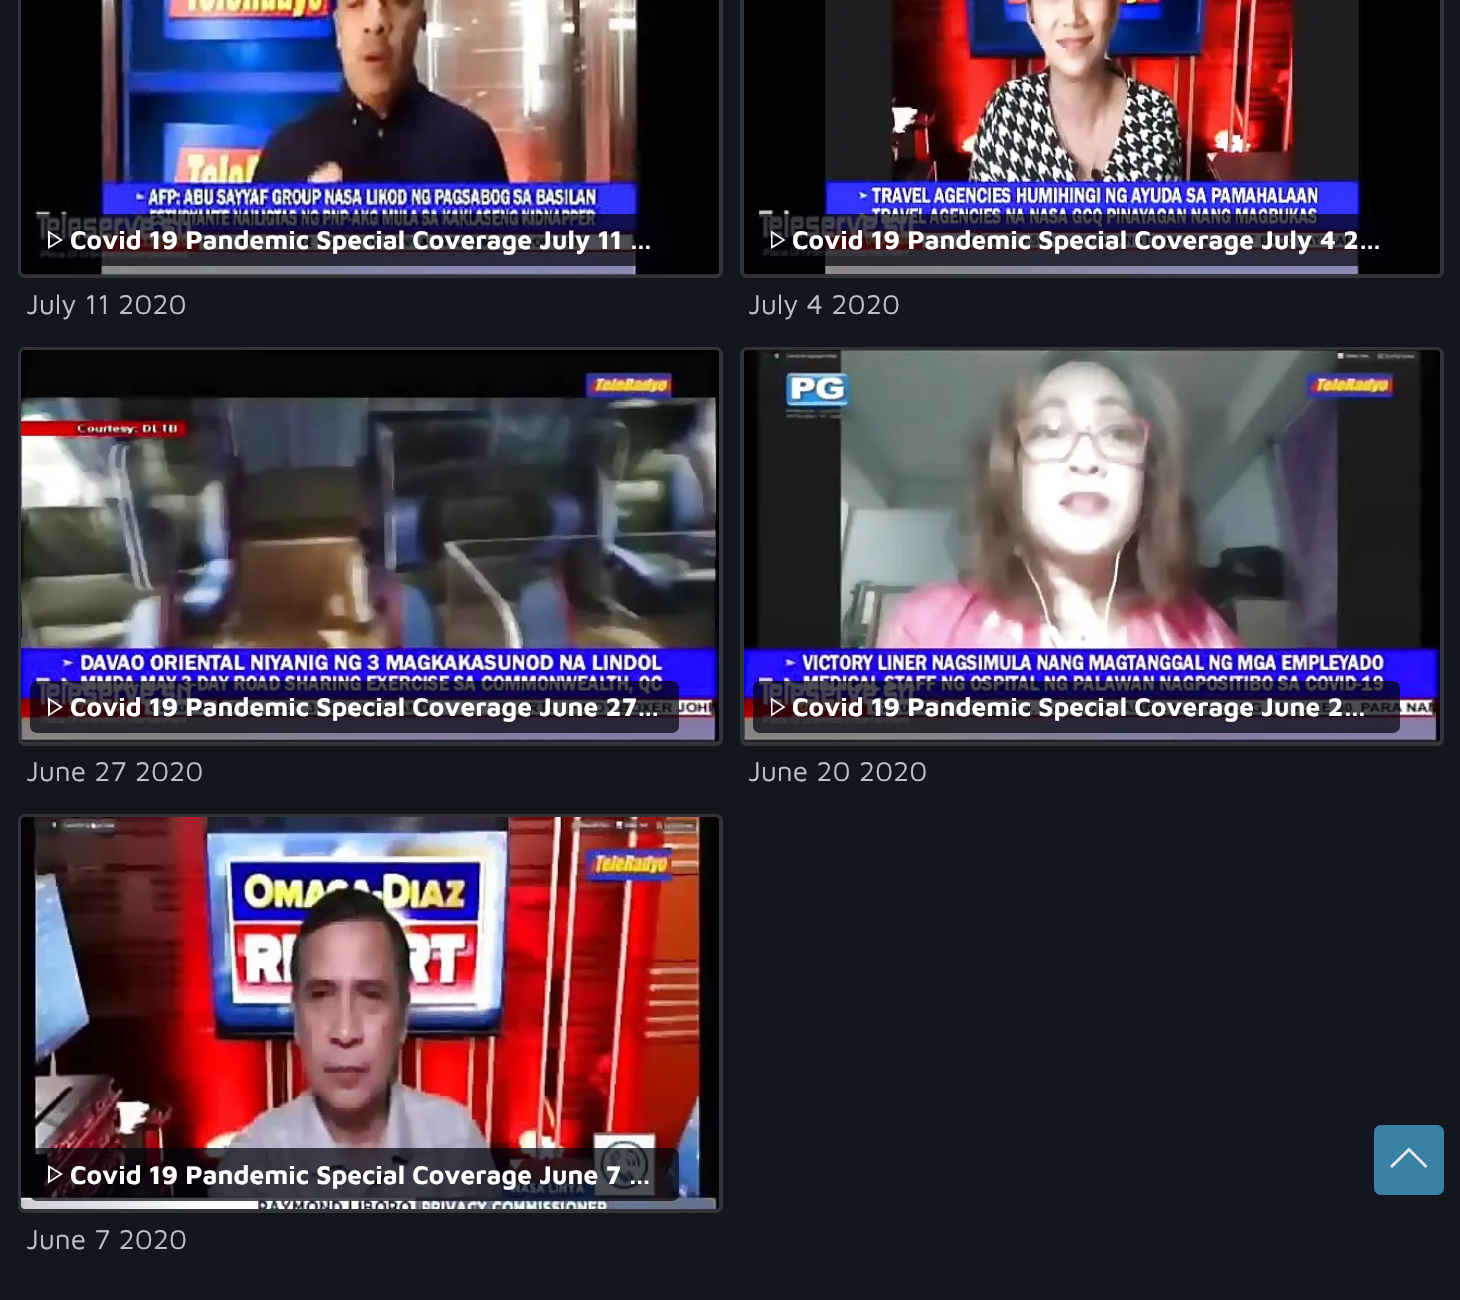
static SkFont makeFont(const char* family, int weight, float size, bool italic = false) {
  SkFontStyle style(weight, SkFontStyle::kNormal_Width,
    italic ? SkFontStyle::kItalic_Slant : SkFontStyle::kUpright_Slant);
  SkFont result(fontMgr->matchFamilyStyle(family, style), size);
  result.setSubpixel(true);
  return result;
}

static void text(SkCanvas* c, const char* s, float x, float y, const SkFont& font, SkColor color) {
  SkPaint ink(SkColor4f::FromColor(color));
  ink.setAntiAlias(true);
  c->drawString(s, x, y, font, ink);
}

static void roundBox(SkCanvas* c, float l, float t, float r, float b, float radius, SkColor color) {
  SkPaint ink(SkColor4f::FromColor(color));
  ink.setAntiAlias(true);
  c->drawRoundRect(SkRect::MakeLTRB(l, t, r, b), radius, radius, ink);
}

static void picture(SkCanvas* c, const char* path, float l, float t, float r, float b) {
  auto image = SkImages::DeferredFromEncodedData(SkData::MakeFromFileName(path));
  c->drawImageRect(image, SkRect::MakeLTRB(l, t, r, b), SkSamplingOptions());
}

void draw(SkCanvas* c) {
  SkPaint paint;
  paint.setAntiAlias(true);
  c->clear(0xff14161e);
  paint.setStyle(SkPaint::kStroke_Style);
  paint.setStrokeWidth(4);
  paint.setColor(0xff32343a);
  c->drawRoundRect(SkRect::MakeLTRB(20, -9, 721, 276), 5, 5, paint);
  roundBox(c, 21, -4, 719, 275, 4, 0xff32343a);
  picture(c, "img_01.png", 21, 0, 719, 275);
  roundBox(c, 30, 214, 679, 266, 7, 0xb300020a);
  paint.setStyle(SkPaint::kFill_Style);
  paint.setColor(0xffffffff);
  c->drawPath(SkPathBuilder().moveTo(48, 230.5f).lineTo(48, 249).lineTo(63, 240).close().moveTo(50, 233.5f).lineTo(59.5f, 240).lineTo(50, 246).close().detach(), paint);
  SkFont face1 = makeFont("Maven Pro", 700, 26.25f);
  text(c, "Covid 19 Pandemic Special Coverage July 11 …", 70, 249, face1, 0xffffffff);
  SkFont face2 = makeFont("Maven Pro", 400, 28);
  text(c, "July 11 2020", 26, 314, face2, 0xffbec0c8);
  paint.setStyle(SkPaint::kStroke_Style);
  paint.setColor(0xff32343a);
  c->drawRoundRect(SkRect::MakeLTRB(742, -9, 1442, 276), 5, 5, paint);
  roundBox(c, 744, -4, 1440, 275, 4, 0xff32343a);
  picture(c, "img_02.png", 744, 0, 1440, 275);
  roundBox(c, 753, 214, 1400, 266, 7, 0xb300020a);
  paint.setStyle(SkPaint::kFill_Style);
  paint.setColor(0xffffffff);
  c->drawPath(SkPathBuilder().moveTo(771, 230.5f).lineTo(771, 249).lineTo(785.5f, 240).close().moveTo(772.5f, 233.5f).lineTo(782.5f, 240).lineTo(772.5f, 246).close().detach(), paint);
  text(c, "Covid 19 Pandemic Special Coverage July 4 2…", 792, 249, face1, 0xffffffff);
  text(c, "July 4 2020", 748, 314, face2, 0xffbec0c8);
  paint.setStyle(SkPaint::kStroke_Style);
  paint.setColor(0xff32343a);
  c->drawRoundRect(SkRect::MakeLTRB(20, 349, 721, 744), 5, 5, paint);
  roundBox(c, 21, 350, 719, 742, 4, 0xff32343a);
  picture(c, "img_03.png", 21, 350, 719, 742);
  roundBox(c, 30, 681, 679, 733, 7, 0xb300020a);
  paint.setStyle(SkPaint::kFill_Style);
  paint.setColor(0xffffffff);
  c->drawPath(SkPathBuilder().moveTo(48, 697.5f).lineTo(48, 716.5f).lineTo(63, 707).close().moveTo(50, 700.5f).lineTo(59.5f, 707).lineTo(50, 713.5f).close().detach(), paint);
  text(c, "Covid 19 Pandemic Special Coverage June 27…", 70, 716, face1, 0xffffffff);
  text(c, "June 27 2020", 26, 781, face2, 0xffbec0c8);
  paint.setStyle(SkPaint::kStroke_Style);
  paint.setColor(0xff32343a);
  c->drawRoundRect(SkRect::MakeLTRB(742, 349, 1442, 744), 5, 5, paint);
  roundBox(c, 744, 350, 1440, 742, 4, 0xff32343a);
  picture(c, "img_04.png", 744, 350, 1440, 742);
  roundBox(c, 753, 681, 1400, 733, 7, 0xb300020a);
  paint.setStyle(SkPaint::kFill_Style);
  paint.setColor(0xffffffff);
  c->drawPath(SkPathBuilder().moveTo(771, 697.5f).lineTo(771, 716.5f).lineTo(785.5f, 707).close().moveTo(772.5f, 700.5f).lineTo(782.5f, 707).lineTo(772.5f, 713.5f).close().detach(), paint);
  text(c, "Covid 19 Pandemic Special Coverage June 2…", 792, 716, face1, 0xffffffff);
  text(c, "June 20 2020", 748, 781, face2, 0xffbec0c8);
  paint.setStyle(SkPaint::kStroke_Style);
  paint.setColor(0xff32343a);
  c->drawRoundRect(SkRect::MakeLTRB(20, 816, 721, 1211), 5, 5, paint);
  picture(c, "img_05.png", 21, 817, 719, 1209);
  roundBox(c, 30, 1148, 679, 1201, 7, 0xb300020a);
  paint.setStyle(SkPaint::kFill_Style);
  paint.setColor(0xffffffff);
  c->drawPath(SkPathBuilder().moveTo(48, 1165).lineTo(48, 1183.5f).lineTo(63, 1174).close().moveTo(50, 1168).lineTo(59.5f, 1174).lineTo(50, 1180.5f).close().detach(), paint);
  text(c, "Covid 19 Pandemic Special Coverage June 7 …", 70, 1184, face1, 0xffffffff);
  text(c, "June 7 2020", 26, 1249, face2, 0xffbec0c8);
  roundBox(c, 1374, 1125, 1444, 1195, 7, 0xff3882a5);
  paint.setColor(0xffe8e8e9);
  c->drawPath(SkPathBuilder().moveTo(1409, 1147.5f).lineTo(1390, 1166).lineTo(1392, 1168).lineTo(1409, 1151.5f).lineTo(1425.5f, 1168).lineTo(1427.5f, 1166).close().detach(), paint);
}
